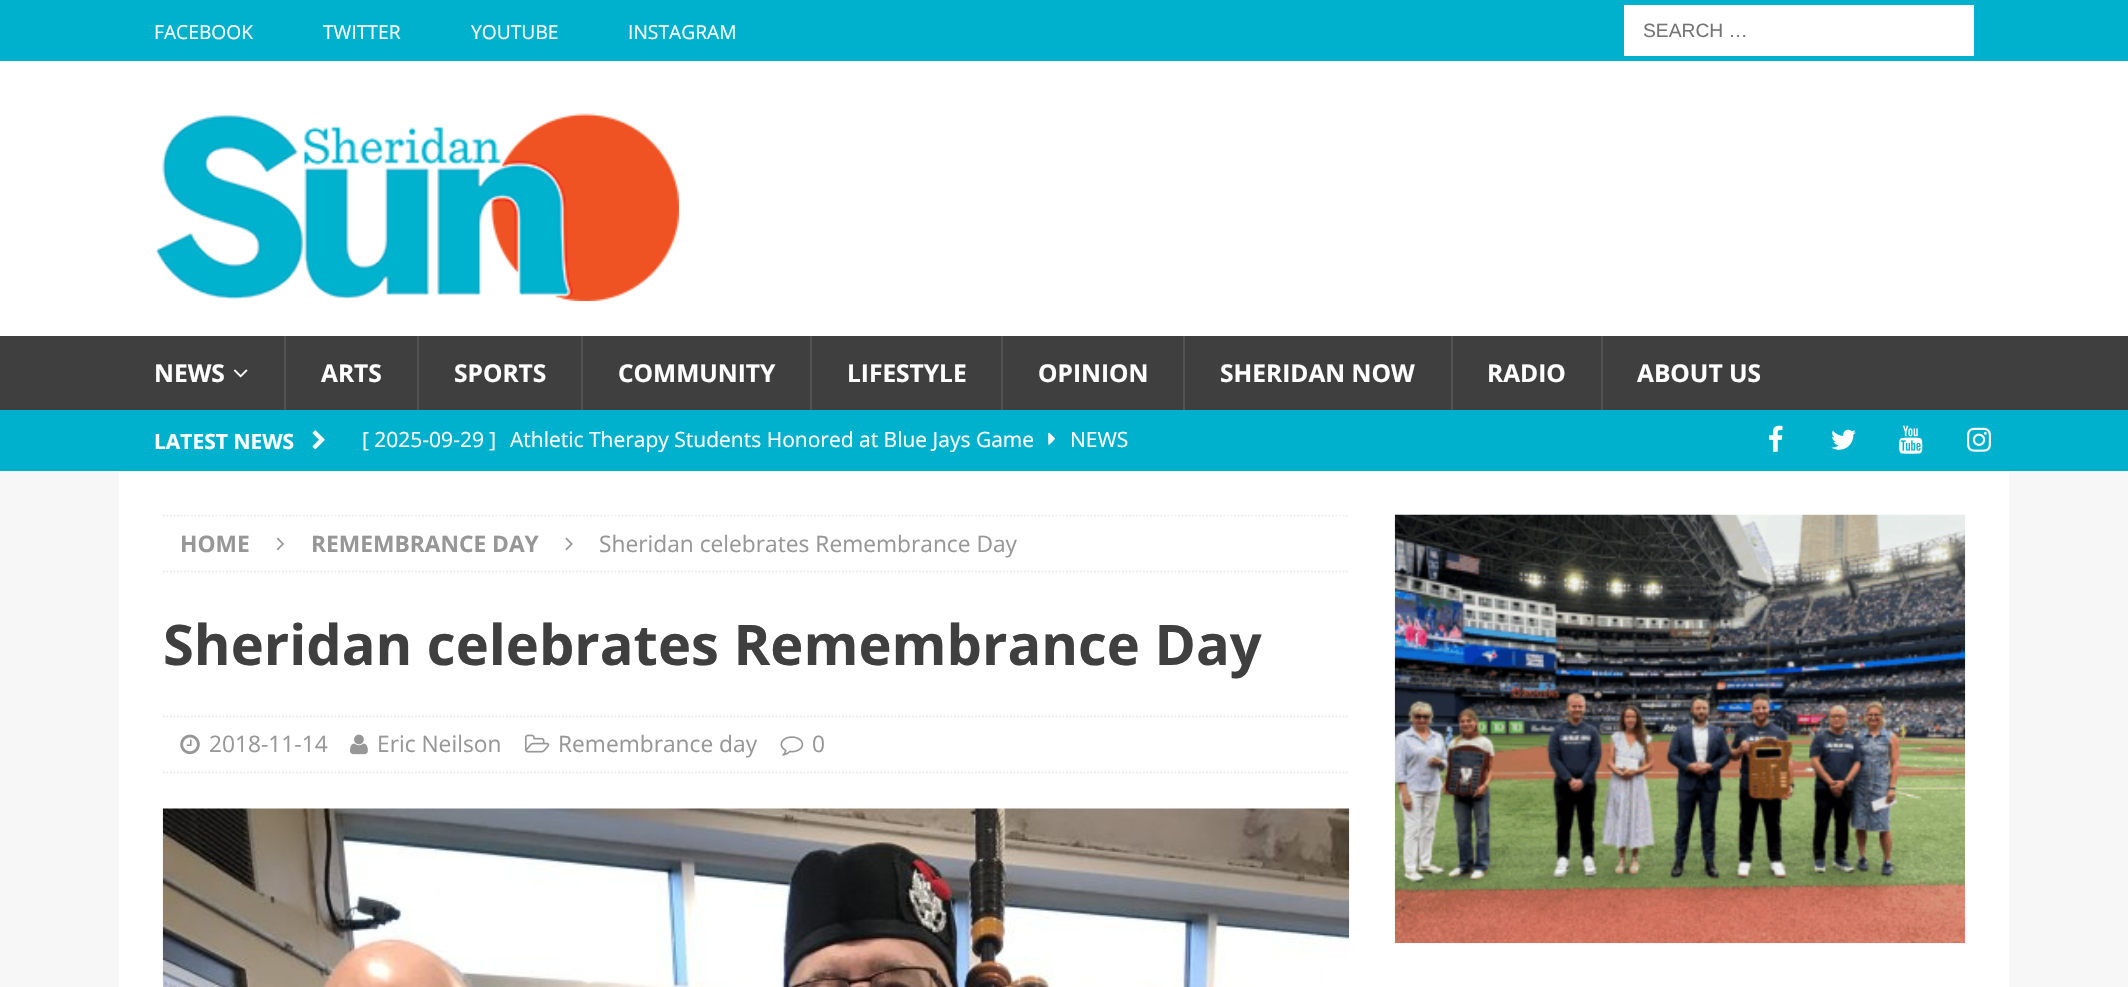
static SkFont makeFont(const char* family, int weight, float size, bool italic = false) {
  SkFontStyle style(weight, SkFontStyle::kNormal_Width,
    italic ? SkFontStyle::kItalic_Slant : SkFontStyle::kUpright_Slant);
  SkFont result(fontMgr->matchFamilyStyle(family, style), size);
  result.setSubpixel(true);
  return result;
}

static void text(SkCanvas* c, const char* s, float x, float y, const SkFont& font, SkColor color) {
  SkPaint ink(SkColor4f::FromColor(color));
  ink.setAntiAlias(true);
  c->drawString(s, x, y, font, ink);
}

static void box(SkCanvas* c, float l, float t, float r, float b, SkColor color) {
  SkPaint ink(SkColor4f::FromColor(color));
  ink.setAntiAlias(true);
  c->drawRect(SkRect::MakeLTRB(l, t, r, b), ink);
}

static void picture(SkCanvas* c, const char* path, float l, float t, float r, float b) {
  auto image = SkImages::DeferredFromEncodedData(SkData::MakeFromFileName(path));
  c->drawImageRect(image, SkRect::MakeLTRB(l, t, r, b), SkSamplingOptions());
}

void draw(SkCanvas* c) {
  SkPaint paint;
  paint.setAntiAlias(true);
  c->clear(0xfff7f7f7);
  box(c, 0, 0, 2128, 61, 0xff00b1cd);
  SkFont face1 = makeFont("Open Sans", 400, 19.25f);
  text(c, "FACEBOOK", 154, 39, face1, 0xffffffff);
  text(c, "TWITTER", 323, 39, face1, 0xffffffff);
  text(c, "YOUTUBE", 471, 39, face1, 0xffffffff);
  text(c, "INSTAGRAM", 628, 39, face1, 0xffffffff);
  box(c, 1624, 5, 1974, 56, 0xffffffff);
  SkFont face2 = makeFont("Liberation Sans", 400, 19.25f);
  text(c, "SEARCH …", 1643, 37, face2, 0xff757575);
  box(c, 0, 61, 2128, 336, 0xffffffff);
  picture(c, "img_01.png", 155, 113, 679, 301);
  box(c, 0, 336, 2128, 410, 0xff3f3f3f);
  SkFont face3 = makeFont("Open Sans", 700, 24.5f);
  text(c, "NEWS", 154, 382, face3, 0xffffffff);
  picture(c, "img_02.png", 233, 369, 248, 378);
  box(c, 284, 336, 286, 410, 0xff525252);
  text(c, "ARTS", 321, 382, face3, 0xffffffff);
  box(c, 417, 336, 419, 410, 0xff525252);
  text(c, "SPORTS", 454, 382, face3, 0xffffffff);
  box(c, 581, 336, 583, 410, 0xff525252);
  text(c, "COMMUNITY", 618, 382, face3, 0xffffffff);
  box(c, 810, 336, 812, 410, 0xff525252);
  text(c, "LIFESTYLE", 847, 382, face3, 0xffffffff);
  box(c, 1001, 336, 1003, 410, 0xff525252);
  text(c, "OPINION", 1038, 382, face3, 0xffffffff);
  box(c, 1183, 336, 1185, 410, 0xff525252);
  text(c, "SHERIDAN NOW", 1220, 382, face3, 0xffffffff);
  box(c, 1451, 336, 1453, 410, 0xff525252);
  text(c, "RADIO", 1487, 382, face3, 0xffffffff);
  box(c, 1601, 336, 1603, 410, 0xff525252);
  text(c, "ABOUT US", 1637, 382, face3, 0xffffffff);
  box(c, 0, 410, 2128, 471, 0xff00b1cd);
  SkFont face4 = makeFont("Open Sans", 700, 21);
  text(c, "LATEST NEWS", 154, 449, face4, 0xffffffff);
  picture(c, "img_03.png", 312, 430, 325, 450);
  SkFont face5 = makeFont("Open Sans", 400, 21);
  text(c, "[ 2025-09-29 ]", 362, 447, face5, 0xffffffff);
  text(c, "Athletic Therapy Students Honored at Blue Jays Game", 510, 447, face5, 0xffffffff);
  picture(c, "img_04.png", 1048, 432, 1055, 445);
  text(c, "NEWS", 1070, 447, face5, 0xffffffff);
  picture(c, "img_05.png", 1769, 425, 1783, 452);
  picture(c, "img_06.png", 1831, 429, 1856, 450);
  picture(c, "img_07.png", 1899, 425, 1923, 454);
  picture(c, "img_08.png", 1967, 427, 1991, 452);
  box(c, 119, 471, 2009, 987, 0xffffffff);
  c->save();
  c->clipRect(SkRect::MakeLTRB(163, 515, 1349, 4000));
  paint.setStyle(SkPaint::kStroke_Style);
  paint.setStrokeWidth(1.8f);
  paint.setColor(0xffebebeb);
  paint.setPathEffect(SkDashPathEffect::Make({{1.75f, 1.75f}}, 0));
  c->drawPath(SkPathBuilder().moveTo(163, 515.5f).lineTo(1349, 515.5f).detach(), paint);
  paint.setPathEffect(nullptr);
  c->restore();
  paint.setPathEffect(SkDashPathEffect::Make({{1.75f, 1.75f}}, 0));
  c->drawPath(SkPathBuilder().moveTo(163, 571.5f).lineTo(1349, 571.5f).detach(), paint);
  paint.setPathEffect(nullptr);
  SkFont face6 = makeFont("Open Sans", 700, 22.75f);
  text(c, "HOME", 180, 552, face6, 0xff979797);
  picture(c, "img_09.png", 276, 537, 284, 551);
  text(c, "REMEMBRANCE DAY", 311, 552, face6, 0xff979797);
  picture(c, "img_10.png", 565, 537, 573, 551);
  SkFont face7 = makeFont("Open Sans", 400, 22.75f);
  text(c, "Sheridan celebrates Remembrance Day", 599, 552, face7, 0xff979797);
  SkFont face8 = makeFont("Open Sans", 700, 56);
  text(c, "Sheridan celebrates Remembrance Day", 163, 665, face8, 0xff3f3f3f);
  paint.setPathEffect(SkDashPathEffect::Make({{1.75f, 1.75f}}, 0));
  c->drawPath(SkPathBuilder().moveTo(163, 716.5f).lineTo(1349, 716.5f).detach(), paint);
  paint.setPathEffect(nullptr);
  paint.setPathEffect(SkDashPathEffect::Make({{1.75f, 1.75f}}, 0));
  c->drawPath(SkPathBuilder().moveTo(163, 772.5f).lineTo(1349, 772.5f).detach(), paint);
  paint.setPathEffect(nullptr);
  picture(c, "img_11.png", 180, 734, 200, 755);
  text(c, "2018-11-14", 209, 752, face7, 0xff979797);
  picture(c, "img_12.png", 350, 734, 368, 755);
  text(c, "Eric Neilson", 377, 752, face7, 0xff979797);
  picture(c, "img_13.png", 525, 734, 550, 753);
  text(c, "Remembrance day", 558, 752, face7, 0xff979797);
  picture(c, "img_14.png", 780, 736, 804, 756);
  text(c, "0", 812, 752, face7, 0xff979797);
  picture(c, "img_15.png", 162, 808, 1350, 987);
  picture(c, "img_16.png", 1394, 514, 1966, 944);
}
